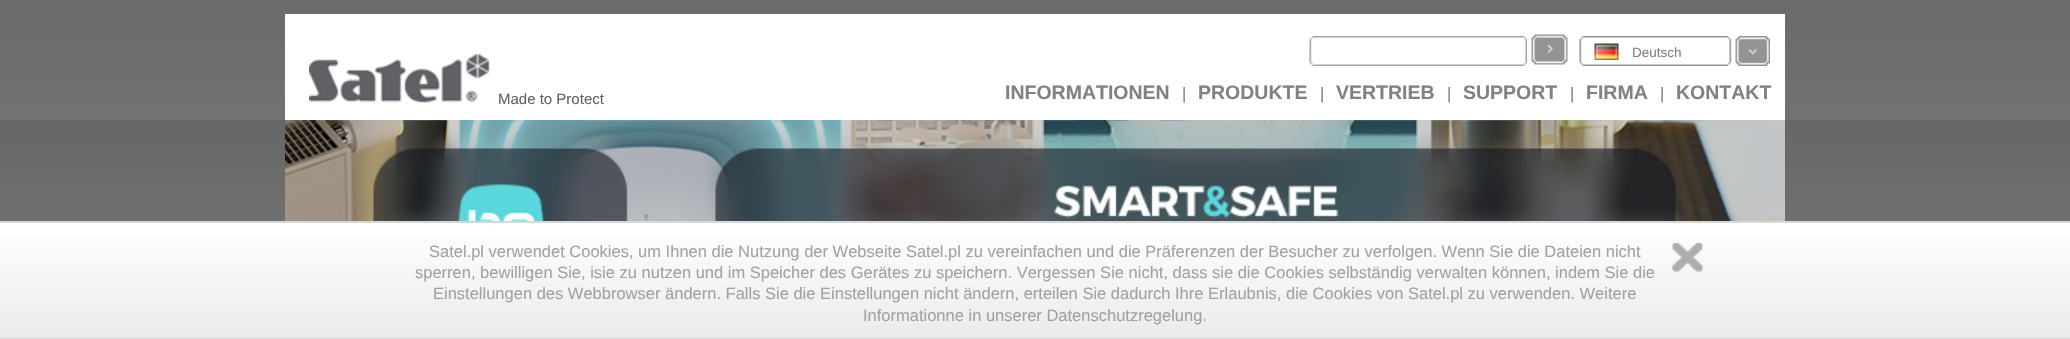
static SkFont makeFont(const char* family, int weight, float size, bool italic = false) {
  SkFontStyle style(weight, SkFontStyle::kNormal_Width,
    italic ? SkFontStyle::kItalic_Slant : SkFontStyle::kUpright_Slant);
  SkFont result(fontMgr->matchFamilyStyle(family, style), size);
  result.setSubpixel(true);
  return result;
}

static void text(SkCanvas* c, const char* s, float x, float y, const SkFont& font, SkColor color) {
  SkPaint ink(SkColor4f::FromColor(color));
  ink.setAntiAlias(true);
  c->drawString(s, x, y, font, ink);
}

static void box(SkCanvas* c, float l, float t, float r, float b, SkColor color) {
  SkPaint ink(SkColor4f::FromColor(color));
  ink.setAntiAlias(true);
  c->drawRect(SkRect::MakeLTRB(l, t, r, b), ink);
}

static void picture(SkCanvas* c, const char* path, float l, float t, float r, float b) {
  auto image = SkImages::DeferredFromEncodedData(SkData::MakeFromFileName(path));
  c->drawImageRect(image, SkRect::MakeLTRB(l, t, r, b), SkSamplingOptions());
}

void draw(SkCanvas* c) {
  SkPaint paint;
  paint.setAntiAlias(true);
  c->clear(0xffffffff);
  picture(c, "img_01.png", 0, 0, 2070, 221);
  box(c, 285, 14, 1785, 120, 0xffffffff);
  picture(c, "img_02.png", 1309, 36, 1527, 66);
  picture(c, "img_03.png", 1531, 34, 1568, 65);
  picture(c, "img_04.png", 1579, 36, 1770, 66);
  picture(c, "img_05.png", 1594, 43, 1619, 60);
  SkFont face1 = makeFont("Liberation Sans", 400, 13.5f);
  text(c, "Deutsch", 1632, 57, face1, 0xff818181);
  picture(c, "img_06.png", 309, 54, 490, 103);
  SkFont face2 = makeFont("Liberation Sans", 400, 15);
  text(c, "Made to Protect", 498, 104, face2, 0xff626066);
  SkFont face3 = makeFont("Liberation Sans", 700, 19.5f);
  text(c, "INFORMATIONEN", 1005, 99, face3, 0xff818181);
  SkFont face4 = makeFont("Liberation Sans", 400, 16.5f);
  text(c, "|", 1182, 99, face4, 0xff818181);
  text(c, "PRODUKTE", 1198, 99, face3, 0xff818181);
  text(c, "|", 1320, 99, face4, 0xff818181);
  text(c, "VERTRIEB", 1336, 99, face3, 0xff818181);
  text(c, "|", 1447, 99, face4, 0xff818181);
  text(c, "SUPPORT", 1463, 99, face3, 0xff818181);
  text(c, "|", 1570, 99, face4, 0xff818181);
  text(c, "FIRMA", 1586, 99, face3, 0xff818181);
  text(c, "|", 1660, 99, face4, 0xff818181);
  text(c, "KONTAKT", 1676, 99, face3, 0xff818181);
  picture(c, "img_07.png", 285, 120, 1785, 221);
  {
    const SkColor colors[] = {0xffffffff, 0xffebebeb};
    const float stops[] = {0, 1};
    const SkPoint ends[] = {{1035, 222}, {1035, 338}};
    paint.setShader(SkGradientShader::MakeLinear(ends, colors, stops, 2, SkTileMode::kClamp));
    paint.setAlpha(255);
  }
  c->drawRect(SkRect::MakeLTRB(0, 237, 2070, 338), paint);
  box(c, 0, 221, 2070, 223, 0xffd7d7d7);
  box(c, 0, 338, 2070, 339, 0xffd7d7d7);
  text(c, "Satel.pl verwendet Cookies, um Ihnen die Nutzung der Webseite Satel.pl zu vereinfachen und die Präferenzen der Besucher zu verfolgen. Wenn Sie die Dateien nicht", 429, 257, face4, 0xffa2a2a2);
  text(c, "sperren, bewilligen Sie, isie zu nutzen und im Speicher des Gerätes zu speichern. Vergessen Sie nicht, dass sie die Cookies selbständig verwalten können, indem Sie die", 415, 278, face4, 0xffa2a2a2);
  text(c, "Einstellungen des Webbrowser ändern. Falls Sie die Einstellungen nicht ändern, erteilen Sie dadurch Ihre Erlaubnis, die Cookies von Satel.pl zu verwenden. Weitere", 433, 299, face4, 0xffa2a2a2);
  text(c, "Informationne in unserer Datenschutzregelung.", 863, 321, face4, 0xffa2a2a2);
  picture(c, "img_08.png", 1672, 243, 1703, 272);
}
